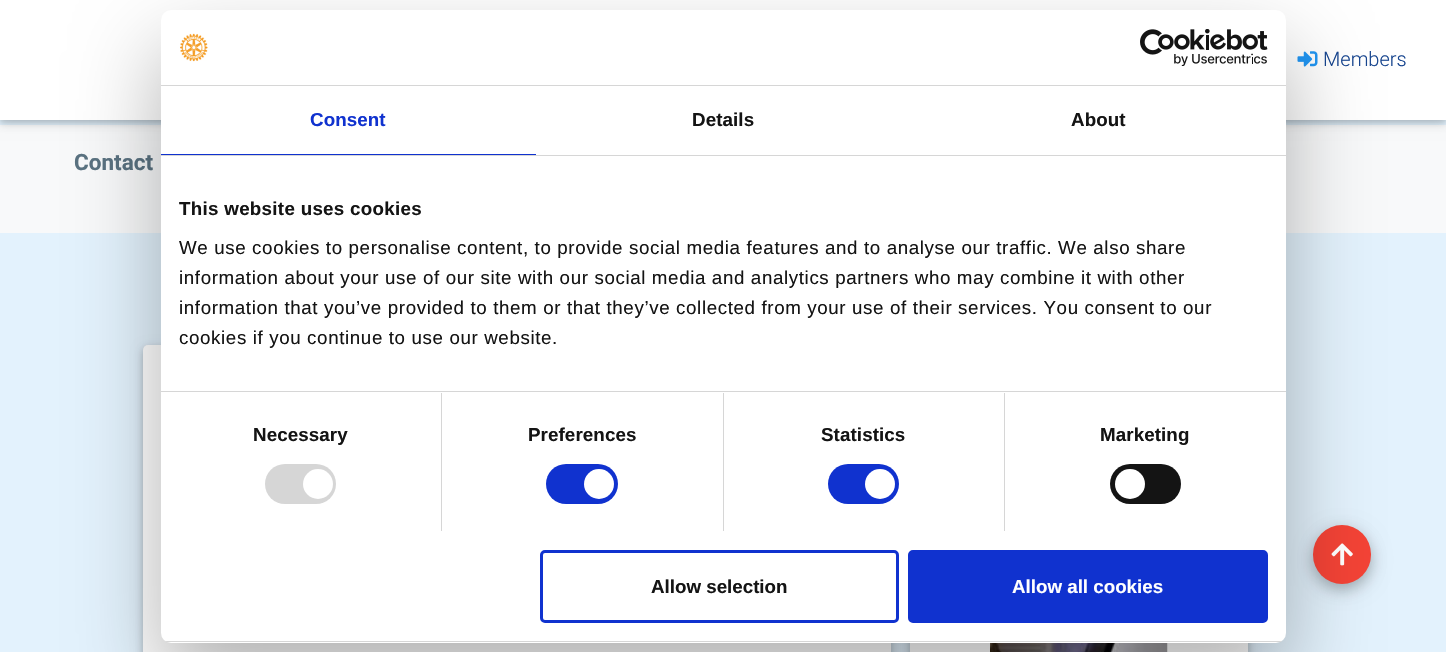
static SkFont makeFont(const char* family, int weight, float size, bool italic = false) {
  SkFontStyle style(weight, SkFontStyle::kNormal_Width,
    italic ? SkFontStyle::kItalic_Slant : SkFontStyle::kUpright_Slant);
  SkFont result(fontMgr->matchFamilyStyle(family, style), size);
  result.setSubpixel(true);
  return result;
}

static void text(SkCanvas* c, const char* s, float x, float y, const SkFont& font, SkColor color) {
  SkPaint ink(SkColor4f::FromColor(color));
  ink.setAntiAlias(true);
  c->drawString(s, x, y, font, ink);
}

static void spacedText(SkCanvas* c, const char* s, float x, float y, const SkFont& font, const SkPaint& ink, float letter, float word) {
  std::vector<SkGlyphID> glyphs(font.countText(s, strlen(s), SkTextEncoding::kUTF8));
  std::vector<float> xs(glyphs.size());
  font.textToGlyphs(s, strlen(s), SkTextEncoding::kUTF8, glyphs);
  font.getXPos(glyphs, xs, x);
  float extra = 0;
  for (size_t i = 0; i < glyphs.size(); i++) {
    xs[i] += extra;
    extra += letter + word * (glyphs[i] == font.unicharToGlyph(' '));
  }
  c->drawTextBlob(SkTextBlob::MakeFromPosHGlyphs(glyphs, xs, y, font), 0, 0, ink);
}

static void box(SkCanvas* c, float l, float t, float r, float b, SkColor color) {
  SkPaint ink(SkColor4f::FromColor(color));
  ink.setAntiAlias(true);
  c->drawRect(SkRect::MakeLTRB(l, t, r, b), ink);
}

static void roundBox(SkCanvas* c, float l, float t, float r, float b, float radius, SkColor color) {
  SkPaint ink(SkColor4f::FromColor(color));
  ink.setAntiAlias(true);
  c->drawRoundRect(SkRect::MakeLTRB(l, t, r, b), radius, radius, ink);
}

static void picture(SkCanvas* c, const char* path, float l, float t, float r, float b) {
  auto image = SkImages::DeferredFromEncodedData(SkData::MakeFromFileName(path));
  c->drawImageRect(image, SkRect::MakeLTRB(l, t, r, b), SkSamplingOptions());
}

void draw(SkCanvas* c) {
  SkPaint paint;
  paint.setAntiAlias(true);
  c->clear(0xffe3f2fd);
  box(c, 0, 125, 1446, 233, 0xfff8f9fa);
  paint.setColor(0x1f000000);
  paint.setMaskFilter(SkMaskFilter::MakeBlur(kNormal_SkBlurStyle, 6));
  c->drawRect(SkRect::MakeLTRB(0, 3, 1446, 123), paint);
  paint.setMaskFilter(nullptr);
  paint.setColor(0x29000000);
  paint.setMaskFilter(SkMaskFilter::MakeBlur(kNormal_SkBlurStyle, 3));
  c->drawRect(SkRect::MakeLTRB(0, 3, 1446, 123), paint);
  paint.setMaskFilter(nullptr);
  box(c, 0, 0, 1446, 120, 0xffffffff);
  picture(c, "img_01.png", 1297, 51, 1318, 67);
  SkFont face1 = makeFont("Roboto", 300, 20);
  text(c, "Members", 1323, 66, face1, 0xff17458f);
  SkFont face2 = makeFont("Roboto", 700, 22.5f);
  text(c, "Contact", 74, 170, face2, 0xff5a7281);
  paint.setColor(0x1f000000);
  paint.setMaskFilter(SkMaskFilter::MakeBlur(kNormal_SkBlurStyle, 6));
  c->drawRoundRect(SkRect::MakeLTRB(143, 348, 891, 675), 5, 5, paint);
  paint.setMaskFilter(nullptr);
  paint.setColor(0x29000000);
  paint.setMaskFilter(SkMaskFilter::MakeBlur(kNormal_SkBlurStyle, 3));
  c->drawRoundRect(SkRect::MakeLTRB(143, 348, 891, 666), 5, 5, paint);
  paint.setMaskFilter(nullptr);
  roundBox(c, 143, 345, 891, 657, 5, 0xffffffff);
  paint.setColor(0x1f000000);
  paint.setMaskFilter(SkMaskFilter::MakeBlur(kNormal_SkBlurStyle, 6));
  c->drawRoundRect(SkRect::MakeLTRB(910, 424, 1248, 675), 5, 5, paint);
  paint.setMaskFilter(nullptr);
  paint.setColor(0x29000000);
  paint.setMaskFilter(SkMaskFilter::MakeBlur(kNormal_SkBlurStyle, 3));
  c->drawRoundRect(SkRect::MakeLTRB(910, 424, 1248, 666), 5, 5, paint);
  paint.setMaskFilter(nullptr);
  box(c, 910, 643, 1248, 652, 0xffffffff);
  picture(c, "img_04.png", 990, 643, 1168, 652);
  paint.setColor(0x26000000);
  paint.setMaskFilter(SkMaskFilter::MakeBlur(kNormal_SkBlurStyle, 9.5f));
  c->drawRoundRect(SkRect::MakeLTRB(1313, 530, 1371, 589), 29, 29, paint);
  paint.setMaskFilter(nullptr);
  paint.setColor(0x2e000000);
  paint.setMaskFilter(SkMaskFilter::MakeBlur(kNormal_SkBlurStyle, 7));
  c->drawRoundRect(SkRect::MakeLTRB(1313, 531, 1371, 590), 29, 29, paint);
  paint.setMaskFilter(nullptr);
  roundBox(c, 1313, 525, 1371, 584, 29, 0xfff44336);
  picture(c, "img_05.png", 1331, 543, 1353, 566);
  paint.setColor(0x4d000000);
  paint.setMaskFilter(SkMaskFilter::MakeBlur(kNormal_SkBlurStyle, 42.5f));
  c->drawRoundRect(SkRect::MakeLTRB(161, 50, 1286, 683), 10, 10, paint);
  paint.setMaskFilter(nullptr);
  roundBox(c, 161, 10, 1286, 643, 10, 0xffffffff);
  box(c, 161, 85, 1286, 86, 0xffd6d6d6);
  picture(c, "img_02.png", 180, 33, 208, 62);
  picture(c, "img_03.png", 1140, 29, 1268, 66);
  box(c, 161, 155, 1286, 156, 0xffd6d6d6);
  box(c, 161, 154, 536, 155, 0xff1032cf);
  SkFont face3 = makeFont("Liberation Sans", 700, 18.75f);
  paint.setColor(0xff1032cf);
  spacedText(c, "Consent", 310, 126, face3, paint, 0.1f, 0);
  paint.setColor(0xff141414);
  spacedText(c, "Details", 692, 126, face3, paint, 0.1f, 0);
  spacedText(c, "About", 1071, 126, face3, paint, 0.1f, 0);
  box(c, 161, 391, 1286, 392, 0xffd6d6d6);
  spacedText(c, "This website uses cookies", 179, 215, face3, paint, 0.3f, 0);
  SkFont face4 = makeFont("Liberation Sans", 400, 18.75f);
  spacedText(c, "We use cookies to personalise content, to provide social media features and to analyse our traffic. We also share", 179, 254, face4, paint, 0.62f, 0);
  spacedText(c, "information about your use of our site with our social media and analytics partners who may combine it with other", 179, 284, face4, paint, 0.62f, 0);
  spacedText(c, "information that you’ve provided to them or that they’ve collected from your use of their services. You consent to our", 179, 314, face4, paint, 0.62f, 0);
  spacedText(c, "cookies if you continue to use our website.", 179, 344, face4, paint, 0.62f, 0);
  box(c, 441, 393, 442, 531, 0xffd6d6d6);
  spacedText(c, "Necessary", 253, 441, face3, paint, 0.1f, 0);
  roundBox(c, 265, 464, 336, 504, 20, 0xffd6d6d6);
  paint.setColor(0xffffffff);
  c->drawCircle(318, 484, 15, paint);
  box(c, 723, 393, 724, 531, 0xffd6d6d6);
  paint.setColor(0xff141414);
  spacedText(c, "Preferences", 528, 441, face3, paint, 0.1f, 0);
  roundBox(c, 546, 464, 618, 504, 20, 0xff1032cf);
  paint.setColor(0xffffffff);
  c->drawCircle(599, 484, 15, paint);
  box(c, 1004, 393, 1005, 531, 0xffd6d6d6);
  paint.setColor(0xff141414);
  spacedText(c, "Statistics", 821, 441, face3, paint, 0.1f, 0);
  roundBox(c, 828, 464, 899, 504, 20, 0xff1032cf);
  paint.setColor(0xffffffff);
  c->drawCircle(880, 484, 15, paint);
  paint.setColor(0xff141414);
  spacedText(c, "Marketing", 1100, 441, face3, paint, 0.1f, 0);
  roundBox(c, 1110, 464, 1181, 504, 20, 0xff141414);
  paint.setColor(0xffffffff);
  c->drawCircle(1130, 484, 15, paint);
  c->save();
  c->clipPath(SkPathBuilder().moveTo(171, 10).lineTo(1276, 10).cubicTo(1281.5f, 10, 1286, 14.5f, 1286, 20).lineTo(1286, 633).cubicTo(1286, 638.5f, 1281.5f, 643, 1276, 643).lineTo(171, 643).cubicTo(165.5f, 643, 161, 638.5f, 161, 633).lineTo(161, 20).cubicTo(161, 14.5f, 165.5f, 10, 171, 10).close().detach(), true);
  box(c, 161, 641, 1286, 642, 0xffd6d6d6);
  c->restore();
  paint.setStyle(SkPaint::kStroke_Style);
  paint.setStrokeWidth(3);
  paint.setColor(0xff1032cf);
  c->drawRoundRect(SkRect::MakeLTRB(541.5f, 551.5f, 897.5f, 621.5f), 3.5f, 3.5f, paint);
  text(c, "Allow selection", 651, 593, face3, 0xff141414);
  paint.setStyle(SkPaint::kFill_Style);
  c->drawRoundRect(SkRect::MakeLTRB(909.5f, 551.5f, 1266.5f, 621.5f), 3.5f, 3.5f, paint);
  paint.setStyle(SkPaint::kStroke_Style);
  c->drawRoundRect(SkRect::MakeLTRB(909.5f, 551.5f, 1266.5f, 621.5f), 3.5f, 3.5f, paint);
  text(c, "Allow all cookies", 1012, 593, face3, 0xffffffff);
}
